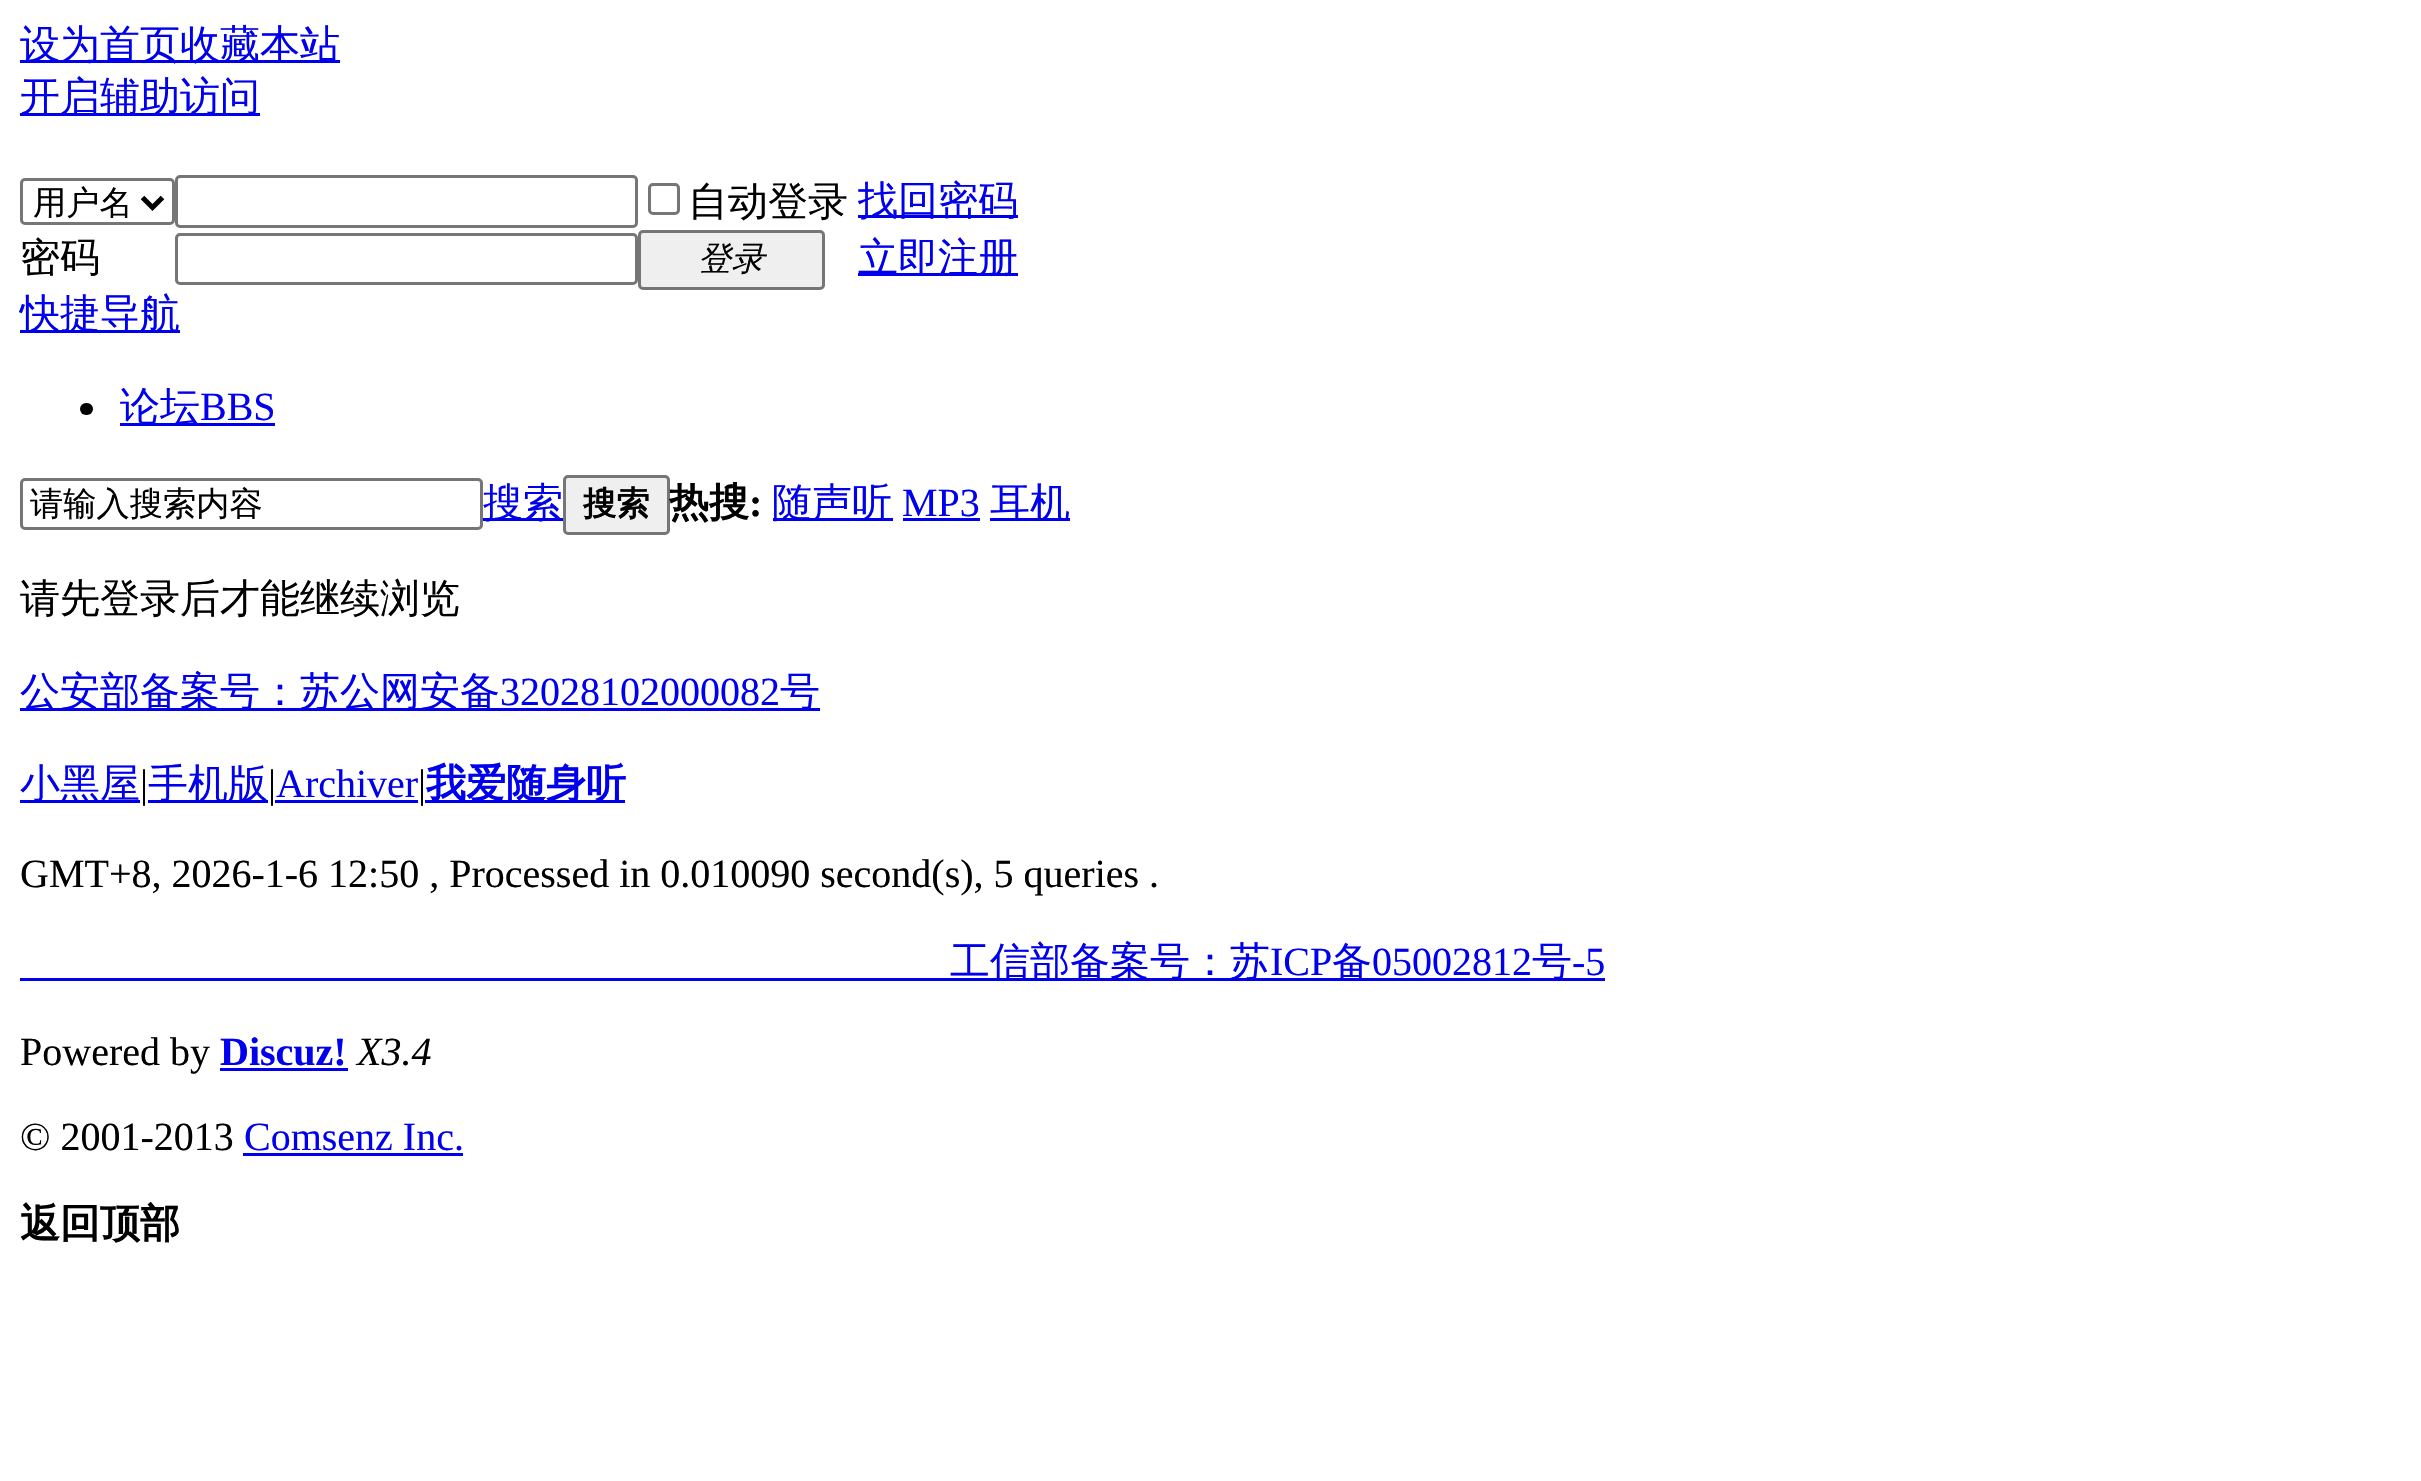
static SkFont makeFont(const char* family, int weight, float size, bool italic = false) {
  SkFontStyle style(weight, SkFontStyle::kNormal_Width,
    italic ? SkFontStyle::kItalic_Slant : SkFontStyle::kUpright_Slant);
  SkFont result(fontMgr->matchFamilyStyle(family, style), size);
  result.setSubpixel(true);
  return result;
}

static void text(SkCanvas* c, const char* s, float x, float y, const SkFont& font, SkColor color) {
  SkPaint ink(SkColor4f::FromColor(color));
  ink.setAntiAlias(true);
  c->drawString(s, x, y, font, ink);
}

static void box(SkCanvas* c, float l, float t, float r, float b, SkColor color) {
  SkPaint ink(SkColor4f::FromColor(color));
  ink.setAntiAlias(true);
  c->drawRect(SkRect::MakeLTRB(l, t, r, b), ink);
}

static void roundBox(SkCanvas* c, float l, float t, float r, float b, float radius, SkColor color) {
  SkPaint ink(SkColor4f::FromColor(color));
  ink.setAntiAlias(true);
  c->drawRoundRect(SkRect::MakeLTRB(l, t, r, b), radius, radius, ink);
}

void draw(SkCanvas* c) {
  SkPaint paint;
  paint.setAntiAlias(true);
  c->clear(0xffffffff);
  box(c, 20, 60, 340, 63, 0xff0000ee);
  SkFont face1 = makeFont("WenQuanYi Zen Hei", 500, 40);
  text(c, "设为首页收藏本站", 20, 58, face1, 0xff0000ee);
  box(c, 20, 113, 260, 116, 0xff0000ee);
  text(c, "开启辅助访问", 20, 110, face1, 0xff0000ee);
  paint.setStyle(SkPaint::kStroke_Style);
  paint.setStrokeWidth(3);
  paint.setColor(0xff767676);
  c->drawRoundRect(SkRect::MakeLTRB(21.5f, 179.5f, 173.5f, 223.5f), 3.5f, 3.5f, paint);
  paint.setStrokeWidth(5);
  paint.setColor(0xff000000);
  c->drawPath(SkPathBuilder().moveTo(142.5f, 197.5f).lineTo(152.5f, 207.5f).lineTo(162.5f, 197.5f).detach(), paint);
  SkFont face2 = makeFont("WenQuanYi Zen Hei", 500, 33.25f);
  text(c, "用户名", 33, 214, face2, 0xff000000);
  paint.setStrokeWidth(3);
  paint.setColor(0xff767676);
  c->drawRoundRect(SkRect::MakeLTRB(176.5f, 176.5f, 636.5f, 226.5f), 3.5f, 3.5f, paint);
  c->drawRoundRect(SkRect::MakeLTRB(649.5f, 184.5f, 678.5f, 213.5f), 3.5f, 3.5f, paint);
  text(c, "自动登录", 688, 215, face1, 0xff000000);
  box(c, 858, 215, 1018, 218, 0xff0000ee);
  text(c, "找回密码", 858, 214, face1, 0xff0000ee);
  text(c, "密码", 20, 271, face1, 0xff000000);
  c->drawRoundRect(SkRect::MakeLTRB(176.5f, 234.5f, 636.5f, 283.5f), 3.5f, 3.5f, paint);
  paint.setStyle(SkPaint::kFill_Style);
  paint.setColor(0xffefefef);
  c->drawRoundRect(SkRect::MakeLTRB(639.5f, 231.5f, 823.5f, 288.5f), 3.5f, 3.5f, paint);
  paint.setStyle(SkPaint::kStroke_Style);
  paint.setColor(0xff767676);
  c->drawRoundRect(SkRect::MakeLTRB(639.5f, 231.5f, 823.5f, 288.5f), 3.5f, 3.5f, paint);
  SkFont face3 = makeFont("WenQuanYi Zen Hei", 500, 33.25f, true);
  text(c, "登录", 698, 270, face3, 0xff000000);
  box(c, 858, 273, 1018, 276, 0xff0000ee);
  text(c, "立即注册", 858, 271, face1, 0xff0000ee);
  box(c, 20, 330, 180, 333, 0xff0000ee);
  text(c, "快捷导航", 20, 327, face1, 0xff0000ee);
  roundBox(c, 80, 403, 93, 415, 6, 0xff000000);
  box(c, 120, 423, 275, 426, 0xff0000ee);
  text(c, "论坛", 120, 420, face1, 0xff0000ee);
  SkFont face4 = makeFont("Liberation Serif", 400, 40);
  text(c, "BBS", 200, 420, face4, 0xff0000ee);
  c->drawRoundRect(SkRect::MakeLTRB(21.5f, 479.5f, 481.5f, 528.5f), 3.5f, 3.5f, paint);
  text(c, "请输入搜索内容", 30, 515, face2, 0xff000000);
  box(c, 483, 518, 563, 521, 0xff0000ee);
  text(c, "搜索", 483, 516, face1, 0xff0000ee);
  paint.setStyle(SkPaint::kFill_Style);
  paint.setColor(0xffefefef);
  c->drawRoundRect(SkRect::MakeLTRB(564.5f, 476.5f, 668.5f, 533.5f), 3.5f, 3.5f, paint);
  paint.setStyle(SkPaint::kStroke_Style);
  paint.setColor(0xff767676);
  c->drawRoundRect(SkRect::MakeLTRB(564.5f, 476.5f, 668.5f, 533.5f), 3.5f, 3.5f, paint);
  SkFont face5 = makeFont("WenQuanYi Zen Hei", 700, 33.25f);
  text(c, "搜索", 583, 515, face5, 0xff000000);
  SkFont face6 = makeFont("WenQuanYi Zen Hei", 700, 40);
  text(c, "热搜", 669, 516, face6, 0xff000000);
  SkFont face7 = makeFont("Liberation Serif", 700, 40);
  text(c, ":", 749, 516, face7, 0xff000000);
  box(c, 773, 518, 893, 521, 0xff0000ee);
  text(c, "随声听", 772, 516, face1, 0xff0000ee);
  text(c, "MP3", 902, 516, face4, 0xff0000ee);
  box(c, 903, 518, 980, 521, 0xff0000ee);
  box(c, 990, 518, 1070, 521, 0xff0000ee);
  text(c, "耳机", 990, 516, face1, 0xff0000ee);
  text(c, "请先登录后才能继续浏览", 20, 612, face1, 0xff000000);
  box(c, 20, 708, 820, 711, 0xff0000ee);
  text(c, "公安部备案号：苏公网安备", 20, 705, face1, 0xff0000ee);
  text(c, "32028102000082", 500, 705, face4, 0xff0000ee);
  text(c, "号", 780, 705, face1, 0xff0000ee);
  box(c, 20, 800, 140, 803, 0xff0000ee);
  text(c, "小黑屋", 20, 797, face1, 0xff0000ee);
  text(c, "|", 140, 797, face4, 0xff000000);
  box(c, 148, 800, 268, 803, 0xff0000ee);
  text(c, "手机版", 148, 797, face1, 0xff0000ee);
  text(c, "|", 268, 797, face4, 0xff000000);
  text(c, "Archiver", 276, 797, face4, 0xff0000ee);
  box(c, 275, 800, 418, 803, 0xff0000ee);
  text(c, "|", 418, 797, face4, 0xff000000);
  box(c, 425, 800, 625, 803, 0xff0000ee);
  text(c, "我爱随身听", 426, 797, face6, 0xff0000ee);
  text(c, "GMT+8, 2026-1-6 12:50 , Processed in 0.010090 second(s), 5 queries .", 20, 887, face4, 0xff000000);
  box(c, 20, 978, 1605, 981, 0xff0000ee);
  text(c, "工信部备案号：苏", 950, 975, face1, 0xff0000ee);
  text(c, "ICP", 1270, 975, face4, 0xff0000ee);
  text(c, "备", 1332, 975, face1, 0xff0000ee);
  text(c, "05002812", 1372, 975, face4, 0xff0000ee);
  text(c, "号", 1532, 975, face1, 0xff0000ee);
  text(c, "-5", 1572, 975, face4, 0xff0000ee);
  text(c, "Powered by", 20, 1065, face4, 0xff000000);
  text(c, "Discuz!", 220, 1065, face7, 0xff0000ee);
  box(c, 220, 1068, 348, 1071, 0xff0000ee);
  SkFont face8 = makeFont("Liberation Serif", 400, 40, true);
  text(c, "X3.4", 357, 1065, face8, 0xff000000);
  text(c, "© 2001-2013", 20, 1150, face4, 0xff000000);
  text(c, "Comsenz Inc.", 244, 1150, face4, 0xff0000ee);
  box(c, 243, 1153, 463, 1156, 0xff0000ee);
  text(c, "返回顶部", 20, 1237, face6, 0xff000000);
}
